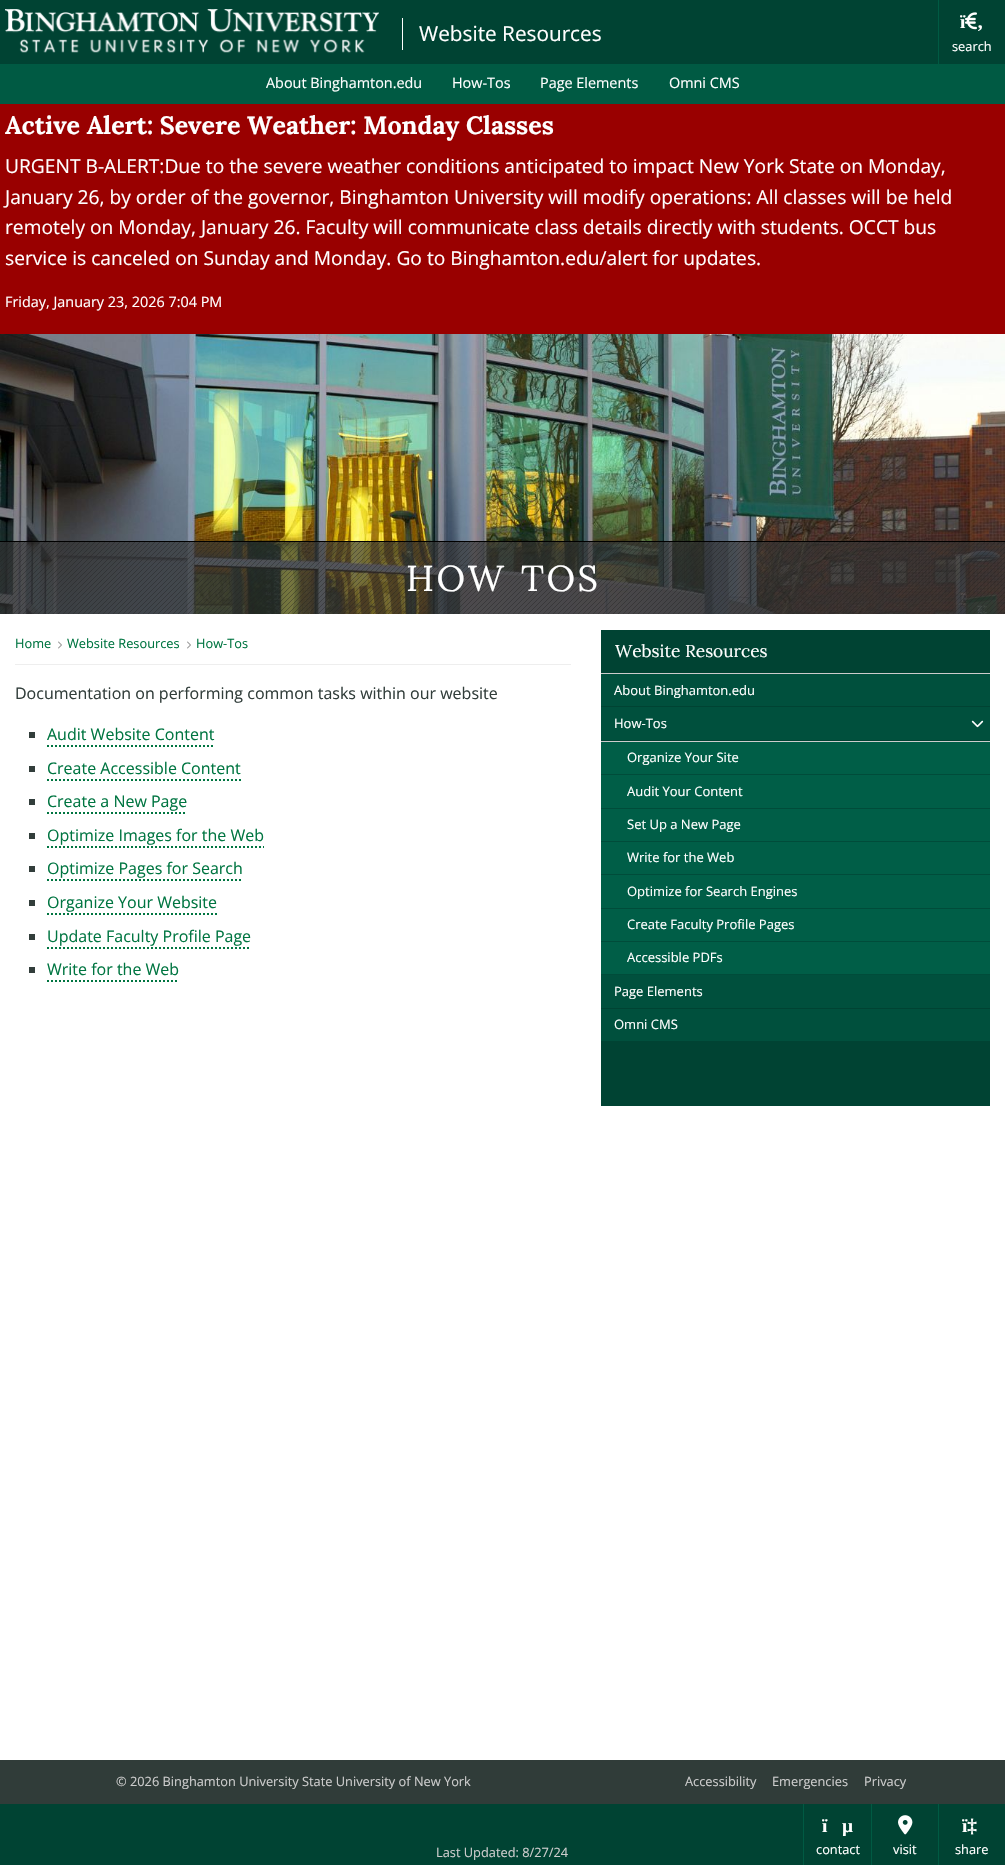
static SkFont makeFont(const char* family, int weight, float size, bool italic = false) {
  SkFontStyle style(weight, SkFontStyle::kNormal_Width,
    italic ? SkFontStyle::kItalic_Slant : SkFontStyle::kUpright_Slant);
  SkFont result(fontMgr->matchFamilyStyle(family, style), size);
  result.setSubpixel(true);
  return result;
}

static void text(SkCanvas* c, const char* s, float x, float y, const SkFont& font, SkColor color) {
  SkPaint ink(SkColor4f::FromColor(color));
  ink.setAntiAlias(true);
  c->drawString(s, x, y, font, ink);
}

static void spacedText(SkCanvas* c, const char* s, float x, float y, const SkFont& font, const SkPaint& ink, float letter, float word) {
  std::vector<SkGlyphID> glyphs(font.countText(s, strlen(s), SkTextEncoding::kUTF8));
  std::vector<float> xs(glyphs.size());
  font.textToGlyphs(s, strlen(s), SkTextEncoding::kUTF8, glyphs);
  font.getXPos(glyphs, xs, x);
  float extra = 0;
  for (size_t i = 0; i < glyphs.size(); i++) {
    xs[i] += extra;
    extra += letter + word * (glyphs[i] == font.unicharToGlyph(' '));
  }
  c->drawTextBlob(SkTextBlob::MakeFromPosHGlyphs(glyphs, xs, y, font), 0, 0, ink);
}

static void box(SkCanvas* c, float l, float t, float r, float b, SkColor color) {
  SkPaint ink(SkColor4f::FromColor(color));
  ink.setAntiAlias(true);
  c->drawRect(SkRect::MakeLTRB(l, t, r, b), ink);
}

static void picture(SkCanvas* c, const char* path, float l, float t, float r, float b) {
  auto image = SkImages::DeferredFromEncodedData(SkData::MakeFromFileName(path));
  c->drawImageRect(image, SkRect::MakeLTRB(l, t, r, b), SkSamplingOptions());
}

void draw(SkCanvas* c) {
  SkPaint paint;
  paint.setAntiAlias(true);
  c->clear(0xffffffff);
  box(c, 0, 0, 1005, 64, 0xff004333);
  picture(c, "img_01.png", 5, 9, 379, 53);
  box(c, 402, 18, 403, 50, 0xffffffff);
  SkFont face1 = makeFont("Open Sans", 400, 20.75f);
  text(c, "Website Resources", 419, 41, face1, 0xffffffff);
  box(c, 938, 0, 939, 64, 0xff005a43);
  picture(c, "img_02.png", 965, 12, 977, 30);
  SkFont face2 = makeFont("Liberation Serif", 700, 19.2f);
  text(c, "ï", 960, 28, face2, 0xffffffff);
  text(c, "‚", 977, 28, face2, 0xffffffff);
  SkFont face3 = makeFont("Open Sans", 400, 12.8f);
  text(c, "search", 952, 51, face3, 0xffffffff);
  box(c, 0, 64, 1005, 104, 0xff005a43);
  SkFont face4 = makeFont("Open Sans", 400, 14.4f);
  text(c, "About Binghamton.edu", 266, 88, face4, 0xffffffff);
  text(c, "How-Tos", 452, 88, face4, 0xffffffff);
  text(c, "Page Elements", 540, 88, face4, 0xffffffff);
  text(c, "Omni CMS", 669, 88, face4, 0xffffffff);
  box(c, 0, 104, 1005, 334, 0xff990000);
  SkFont face5 = makeFont("Lora", 700, 25);
  text(c, "Active Alert: Severe Weather: Monday Classes", 5, 134, face5, 0xffffffff);
  SkFont face6 = makeFont("Open Sans", 400, 19.2f);
  text(c, "URGENT B-ALERT:Due to the severe weather conditions anticipated to impact New York State on Monday,", 5, 173, face6, 0xffffffff);
  text(c, "January 26, by order of the governor, Binghamton University will modify operations: All classes will be held", 5, 204, face6, 0xffffffff);
  text(c, "remotely on Monday, January 26. Faculty will communicate class details directly with students. OCCT bus", 5, 234, face6, 0xffffffff);
  text(c, "service is canceled on Sunday and Monday. Go to Binghamton.edu/alert for updates.", 5, 265, face6, 0xffffffff);
  text(c, "Friday, January 23, 2026 7:04 PM", 5, 307, face4, 0xffffffff);
  picture(c, "img_03.png", 0, 334, 1005, 614);
  picture(c, "img_04.png", 0, 542, 1005, 614);
  box(c, 0, 541, 1005, 542, 0xff000000);
  SkFont face7 = makeFont("Lora", 400, 36);
  paint.setColor(0xffffffff);
  spacedText(c, "HOW TOS", 406, 591, face7, paint, 2.5f, 3);
  box(c, 15, 664, 571, 665, 0xffeeeeee);
  text(c, "Home", 15, 648, face3, 0xff007541);
  picture(c, "img_05.png", 58, 641, 62, 649);
  text(c, "Website Resources", 67, 648, face3, 0xff007541);
  picture(c, "img_05.png", 187, 641, 191, 649);
  text(c, "How-Tos", 196, 648, face3, 0xff007541);
  SkFont face8 = makeFont("Open Sans", 400, 16);
  text(c, "Documentation on performing common tasks within our website", 15, 699, face8, 0xff323e3b);
  box(c, 29, 732, 35, 738, 0xff323e3b);
  text(c, "Audit Website Content", 47, 740, face8, 0xff007541);
  paint.setStyle(SkPaint::kStroke_Style);
  paint.setStrokeWidth(2);
  paint.setColor(0xff007541);
  paint.setPathEffect(SkDashPathEffect::Make({{2, 2}}, 0));
  c->drawPath(SkPathBuilder().moveTo(47, 746).lineTo(214, 746).detach(), paint);
  paint.setPathEffect(nullptr);
  box(c, 29, 766, 35, 772, 0xff323e3b);
  text(c, "Create Accessible Content", 47, 774, face8, 0xff007541);
  paint.setPathEffect(SkDashPathEffect::Make({{2, 2}}, 0));
  c->drawPath(SkPathBuilder().moveTo(47, 780).lineTo(241, 780).detach(), paint);
  paint.setPathEffect(nullptr);
  box(c, 29, 799, 35, 805, 0xff323e3b);
  text(c, "Create a New Page", 47, 807, face8, 0xff007541);
  paint.setPathEffect(SkDashPathEffect::Make({{2, 2}}, 0));
  c->drawPath(SkPathBuilder().moveTo(47, 813).lineTo(187, 813).detach(), paint);
  paint.setPathEffect(nullptr);
  box(c, 29, 833, 35, 839, 0xff323e3b);
  text(c, "Optimize Images for the Web", 47, 841, face8, 0xff007541);
  paint.setPathEffect(SkDashPathEffect::Make({{2, 2}}, 0));
  c->drawPath(SkPathBuilder().moveTo(47, 847).lineTo(264, 847).detach(), paint);
  paint.setPathEffect(nullptr);
  box(c, 29, 866, 35, 872, 0xff323e3b);
  text(c, "Optimize Pages for Search", 47, 874, face8, 0xff007541);
  paint.setPathEffect(SkDashPathEffect::Make({{2, 2}}, 0));
  c->drawPath(SkPathBuilder().moveTo(47, 880).lineTo(243, 880).detach(), paint);
  paint.setPathEffect(nullptr);
  box(c, 29, 900, 35, 906, 0xff323e3b);
  text(c, "Organize Your Website", 47, 908, face8, 0xff007541);
  paint.setPathEffect(SkDashPathEffect::Make({{2, 2}}, 0));
  c->drawPath(SkPathBuilder().moveTo(47, 914).lineTo(217, 914).detach(), paint);
  paint.setPathEffect(nullptr);
  box(c, 29, 934, 35, 940, 0xff323e3b);
  text(c, "Update Faculty Profile Page", 47, 942, face8, 0xff007541);
  paint.setPathEffect(SkDashPathEffect::Make({{2, 2}}, 0));
  c->drawPath(SkPathBuilder().moveTo(47, 948).lineTo(251, 948).detach(), paint);
  paint.setPathEffect(nullptr);
  box(c, 29, 967, 35, 973, 0xff323e3b);
  text(c, "Write for the Web", 47, 975, face8, 0xff007541);
  paint.setPathEffect(SkDashPathEffect::Make({{2, 2}}, 0));
  c->drawPath(SkPathBuilder().moveTo(47, 981).lineTo(179, 981).detach(), paint);
  paint.setPathEffect(nullptr);
  box(c, 601, 630, 990, 1106, 0xff004333);
  SkFont face9 = makeFont("Lora", 400, 17.25f);
  text(c, "Website Resources", 615, 657, face9, 0xffffffff);
  box(c, 601, 674, 990, 1041, 0xff00503d);
  box(c, 601, 673, 990, 674, 0xffcccccc);
  box(c, 601, 706, 990, 707, 0xff004333);
  SkFont face10 = makeFont("Open Sans", 400, 13);
  text(c, "About Binghamton.edu", 614, 695, face10, 0xffffffff);
  box(c, 601, 740, 990, 741, 0xff004333);
  text(c, "How-Tos", 614, 728, face10, 0xffffffff);
  picture(c, "img_06.png", 971, 720, 984, 728);
  box(c, 601, 742, 990, 974, 0xff005e47);
  box(c, 601, 741, 990, 742, 0xffcccccc);
  box(c, 601, 774, 990, 775, 0xff004c3a);
  text(c, "Organize Your Site", 627, 762, face10, 0xffffffff);
  box(c, 601, 808, 990, 809, 0xff004c3a);
  text(c, "Audit Your Content", 627, 796, face10, 0xffffffff);
  box(c, 601, 841, 990, 842, 0xff004c3a);
  text(c, "Set Up a New Page", 627, 829, face10, 0xffffffff);
  box(c, 601, 874, 990, 875, 0xff004c3a);
  text(c, "Write for the Web", 627, 862, face10, 0xffffffff);
  box(c, 601, 908, 990, 909, 0xff004c3a);
  text(c, "Optimize for Search Engines", 627, 896, face10, 0xffffffff);
  box(c, 601, 941, 990, 942, 0xff004c3a);
  text(c, "Create Faculty Profile Pages", 627, 929, face10, 0xffffffff);
  box(c, 601, 974, 990, 975, 0xff004c3a);
  text(c, "Accessible PDFs", 627, 962, face10, 0xffffffff);
  box(c, 601, 1008, 990, 1009, 0xff004333);
  text(c, "Page Elements", 614, 996, face10, 0xffffffff);
  text(c, "Omni CMS", 614, 1029, face10, 0xffffffff);
  box(c, 0, 1760, 1005, 1804, 0xff303c39);
  text(c, "© 2026 Binghamton University State University of New York", 116, 1786, face3, 0xffcccccc);
  text(c, "Accessibility", 685, 1786, face3, 0xffcccccc);
  text(c, "Emergencies", 772, 1786, face3, 0xffcccccc);
  text(c, "Privacy", 864, 1786, face3, 0xffcccccc);
  box(c, 0, 1804, 1005, 1865, 0xff004333);
  text(c, "Last Updated: 8/27/24", 436, 1857, face3, 0xffcccccc);
  box(c, 803, 1804, 804, 1865, 0xff005a43);
  text(c, "ï", 822, 1832, face2, 0xffffffff);
  text(c, "µ", 842, 1832, face2, 0xffffffff);
  text(c, "contact", 816, 1854, face3, 0xffffffff);
  box(c, 871, 1804, 872, 1865, 0xff005a43);
  picture(c, "img_07.png", 898, 1815, 913, 1835);
  text(c, "visit", 893, 1854, face3, 0xffffffff);
  box(c, 938, 1804, 939, 1865, 0xff005a43);
  text(c, "ï‡", 962, 1832, face2, 0xffffffff);
  text(c, "share", 955, 1854, face3, 0xffffffff);
}
